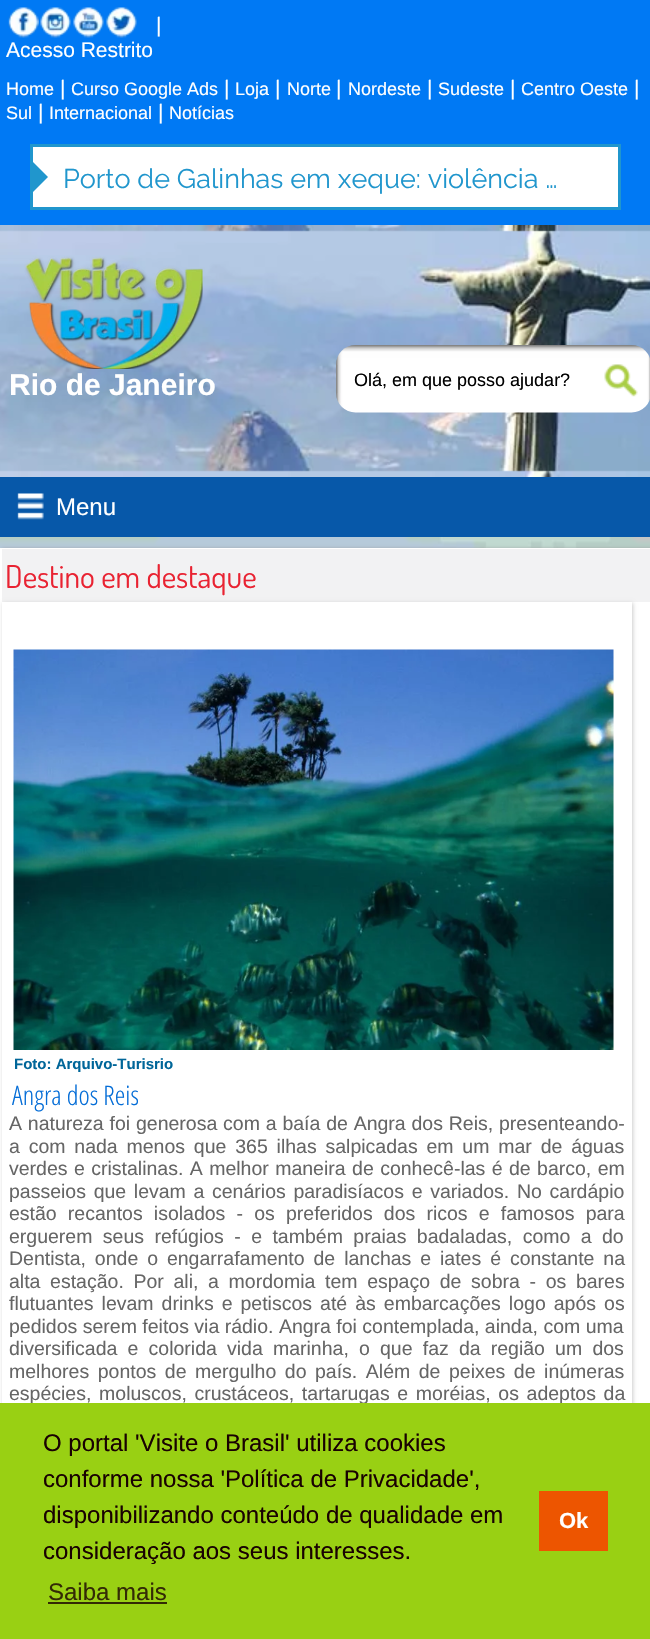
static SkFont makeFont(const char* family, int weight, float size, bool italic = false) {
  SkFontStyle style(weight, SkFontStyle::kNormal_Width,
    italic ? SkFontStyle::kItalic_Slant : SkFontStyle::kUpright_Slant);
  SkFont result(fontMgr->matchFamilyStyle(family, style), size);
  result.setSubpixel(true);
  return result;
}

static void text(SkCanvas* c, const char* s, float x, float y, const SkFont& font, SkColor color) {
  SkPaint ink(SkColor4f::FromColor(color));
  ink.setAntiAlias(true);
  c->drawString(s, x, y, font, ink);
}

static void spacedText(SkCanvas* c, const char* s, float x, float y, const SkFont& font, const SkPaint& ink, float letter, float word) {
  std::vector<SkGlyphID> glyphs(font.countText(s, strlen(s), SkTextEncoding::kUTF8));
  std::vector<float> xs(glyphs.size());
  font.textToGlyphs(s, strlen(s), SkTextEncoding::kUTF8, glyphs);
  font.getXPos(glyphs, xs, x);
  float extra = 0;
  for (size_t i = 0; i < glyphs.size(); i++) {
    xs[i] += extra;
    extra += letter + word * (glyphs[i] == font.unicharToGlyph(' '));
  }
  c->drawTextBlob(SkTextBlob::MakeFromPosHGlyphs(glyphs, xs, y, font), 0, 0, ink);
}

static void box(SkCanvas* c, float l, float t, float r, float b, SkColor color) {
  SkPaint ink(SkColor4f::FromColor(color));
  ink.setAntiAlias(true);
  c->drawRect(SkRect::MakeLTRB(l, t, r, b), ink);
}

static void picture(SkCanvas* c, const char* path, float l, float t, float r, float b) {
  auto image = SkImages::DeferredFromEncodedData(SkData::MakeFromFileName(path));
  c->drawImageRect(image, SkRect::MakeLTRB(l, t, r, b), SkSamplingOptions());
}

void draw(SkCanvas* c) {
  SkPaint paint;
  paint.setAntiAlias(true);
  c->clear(0xffffffff);
  picture(c, "img_01.png", 0, 537, 650, 548);
  box(c, 0, 0, 650, 225, 0xff0079f4);
  picture(c, "img_02.png", 8, 7, 39, 38);
  picture(c, "img_03.png", 40, 7, 71, 38);
  picture(c, "img_04.png", 73, 7, 104, 38);
  picture(c, "img_05.png", 106, 7, 137, 38);
  SkFont face1 = makeFont("Liberation Sans", 400, 21);
  text(c, "|", 156, 32, face1, 0xffffffff);
  text(c, "Acesso Restrito", 6, 57, face1, 0xffffffff);
  SkFont face2 = makeFont("Liberation Sans", 400, 18);
  text(c, "Home", 6, 95, face2, 0xffffffff);
  text(c, "|", 60, 95, face1, 0xffffffff);
  text(c, "Curso Google Ads", 71, 95, face2, 0xffffffff);
  text(c, "|", 224, 95, face1, 0xffffffff);
  text(c, "Loja", 235, 95, face2, 0xffffffff);
  text(c, "|", 275, 95, face1, 0xffffffff);
  text(c, "Norte", 287, 95, face2, 0xffffffff);
  text(c, "|", 336, 95, face1, 0xffffffff);
  text(c, "Nordeste", 348, 95, face2, 0xffffffff);
  text(c, "|", 427, 95, face1, 0xffffffff);
  text(c, "Sudeste", 438, 95, face2, 0xffffffff);
  text(c, "|", 510, 95, face1, 0xffffffff);
  text(c, "Centro Oeste", 521, 95, face2, 0xffffffff);
  text(c, "|", 634, 95, face1, 0xffffffff);
  text(c, "Sul", 6, 119, face2, 0xffffffff);
  text(c, "|", 38, 119, face1, 0xffffffff);
  text(c, "Internacional", 49, 119, face2, 0xffffffff);
  text(c, "|", 158, 119, face1, 0xffffffff);
  text(c, "Notícias", 169, 119, face2, 0xffffffff);
  paint.setColor(0xffffffff);
  c->drawRect(SkRect::MakeLTRB(31.5f, 145.5f, 619.5f, 208.5f), paint);
  paint.setStyle(SkPaint::kStroke_Style);
  paint.setStrokeWidth(3);
  paint.setColor(0xff2096cd);
  c->drawRect(SkRect::MakeLTRB(31.5f, 145.5f, 619.5f, 208.5f), paint);
  paint.setStyle(SkPaint::kFill_Style);
  c->drawPath(SkPathBuilder().moveTo(33, 192).lineTo(33, 162).lineTo(48, 177).close().detach(), paint);
  SkFont face3 = makeFont("Raleway", 400, 27);
  text(c, "Porto de Galinhas em xeque: violência …", 63, 188, face3, 0xff2096cd);
  picture(c, "img_06.png", 0, 225, 650, 477);
  picture(c, "img_07.png", 24, 256, 203, 369);
  SkFont face4 = makeFont("Liberation Sans", 700, 30);
  text(c, "Rio de Janeiro", 9, 395, face4, 0xffffffff);
  picture(c, "img_08.png", 336, 345, 650, 413);
  text(c, "Olá, em que posso ajudar?", 354, 386, face2, 0xff000000);
  picture(c, "img_09.png", 604, 364, 638, 397);
  box(c, 0, 477, 650, 537, 0xff0758a9);
  picture(c, "img_10.png", 17, 493, 44, 520);
  SkFont face5 = makeFont("Liberation Sans", 400, 24);
  text(c, "Menu", 56, 515, face5, 0xffffffff);
  paint.setColor(0xff999999);
  paint.setMaskFilter(SkMaskFilter::MakeBlur(kNormal_SkBlurStyle, 2));
  c->drawRect(SkRect::MakeLTRB(2, 549, 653, 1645), paint);
  paint.setMaskFilter(nullptr);
  box(c, 0, 548, 650, 1403, 0xffffffff);
  box(c, 2, 549, 650, 602, 0xfff2f2f3);
  SkFont face6 = makeFont("Dosis", 400, 31.5f);
  text(c, "Destino em destaque", 5, 588, face6, 0xffe92332);
  c->save();
  c->clipPath(SkPathBuilder(SkPathFillType::kEvenOdd).moveTo(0, 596).lineTo(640, 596).lineTo(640, 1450).lineTo(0, 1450).close().moveTo(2, 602).lineTo(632, 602).lineTo(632, 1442).lineTo(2, 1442).close().detach(), true);
  paint.setColor(0xffcccccc);
  paint.setMaskFilter(SkMaskFilter::MakeBlur(kNormal_SkBlurStyle, 2));
  c->drawRect(SkRect::MakeLTRB(3, 603, 633, 1443), paint);
  paint.setMaskFilter(nullptr);
  c->restore();
  picture(c, "img_11.png", 13, 649, 614, 1050);
  SkFont face7 = makeFont("Liberation Sans", 700, 15);
  text(c, "Foto: Arquivo-Turisrio", 14, 1069, face7, 0xff006699);
  SkFont face8 = makeFont("Open Sans Condensed", 300, 27);
  text(c, "Angra dos Reis", 12, 1105, face8, 0xff046dd7);
  SkFont face9 = makeFont("Liberation Sans", 400, 19.5f);
  paint.setColor(0xff666666);
  spacedText(c, "A natureza foi generosa com a baía de Angra dos Reis, presenteando-", 9, 1130, face9, paint, 0, 0.4f);
  spacedText(c, "a com nada menos que 365 ilhas salpicadas em um mar de águas", 9, 1153, face9, paint, 0, 3.4f);
  spacedText(c, "verdes e cristalinas. A melhor maneira de conhecê-las é de barco, em", 9, 1175, face9, paint, 0, 1);
  spacedText(c, "passeios que levam a cenários paradisíacos e variados. No cardápio", 9, 1198, face9, paint, 0, 2.25f);
  spacedText(c, "estão recantos isolados - os preferidos dos ricos e famosos para", 9, 1220, face9, paint, 0, 5.75f);
  spacedText(c, "erguerem seus refúgios - e também praias badaladas, como a do", 9, 1243, face9, paint, 0, 5);
  spacedText(c, "Dentista, onde o engarrafamento de lanchas e iates é constante na", 9, 1265, face9, paint, 0, 3.5f);
  spacedText(c, "alta estação. Por ali, a mordomia tem espaço de sobra - os bares", 9, 1288, face9, paint, 0, 4.25f);
  spacedText(c, "flutuantes levam drinks e petiscos até às embarcações logo após os", 9, 1310, face9, paint, 0, 2.6f);
  text(c, "pedidos serem feitos via rádio. Angra foi contemplada, ainda, com uma", 9, 1333, face9, 0xff666666);
  spacedText(c, "diversificada e colorida vida marinha, o que faz da região um dos", 9, 1355, face9, paint, 0, 4.75f);
  spacedText(c, "melhores pontos de mergulho do país. Além de peixes de inúmeras", 9, 1378, face9, paint, 0, 3.1f);
  spacedText(c, "espécies, moluscos, crustáceos, tartarugas e moréias, os adeptos da", 9, 1400, face9, paint, 0, 2.25f);
  box(c, 0, 1403, 650, 1639, 0xff99d013);
  text(c, "O portal 'Visite o Brasil' utiliza cookies", 43, 1451, face5, 0xff190101);
  text(c, "conforme nossa 'Política de Privacidade',", 43, 1487, face5, 0xff190101);
  text(c, "disponibilizando conteúdo de qualidade em", 43, 1523, face5, 0xff190101);
  text(c, "consideração aos seus interesses.", 43, 1559, face5, 0xff190101);
  text(c, "Saiba mais", 48, 1600, face5, 0xff332a05);
  box(c, 48, 1602, 167, 1604, 0xff332a05);
  box(c, 539, 1491, 608, 1551, 0xffed5500);
  SkFont face10 = makeFont("Liberation Sans", 700, 22);
  text(c, "Ok", 559, 1528, face10, 0xffffffff);
}
